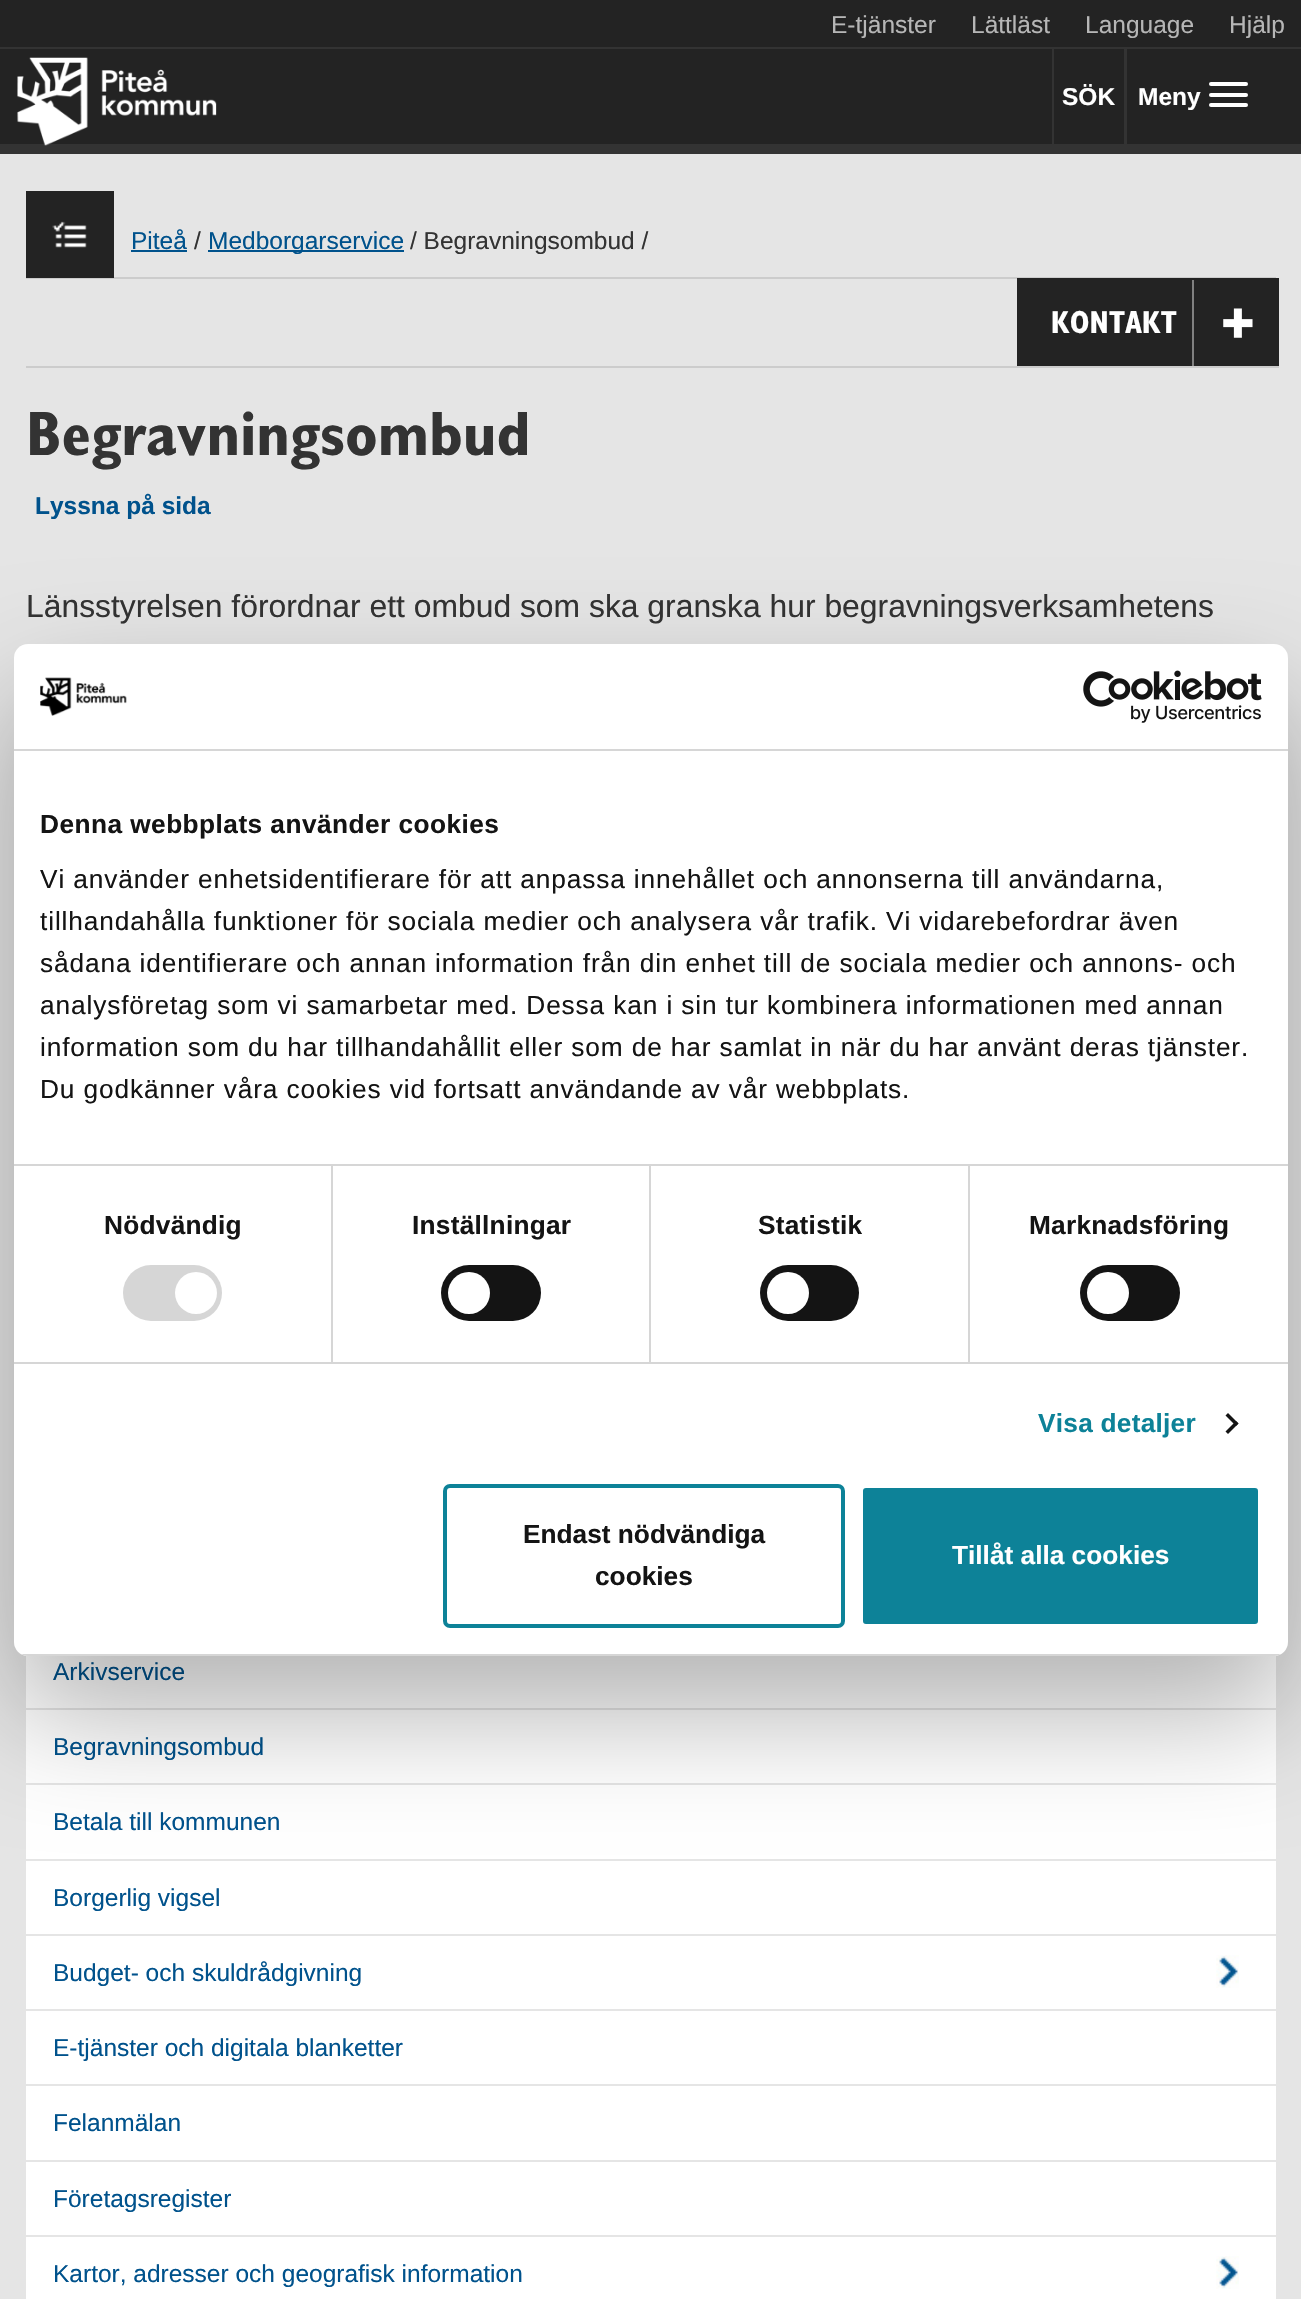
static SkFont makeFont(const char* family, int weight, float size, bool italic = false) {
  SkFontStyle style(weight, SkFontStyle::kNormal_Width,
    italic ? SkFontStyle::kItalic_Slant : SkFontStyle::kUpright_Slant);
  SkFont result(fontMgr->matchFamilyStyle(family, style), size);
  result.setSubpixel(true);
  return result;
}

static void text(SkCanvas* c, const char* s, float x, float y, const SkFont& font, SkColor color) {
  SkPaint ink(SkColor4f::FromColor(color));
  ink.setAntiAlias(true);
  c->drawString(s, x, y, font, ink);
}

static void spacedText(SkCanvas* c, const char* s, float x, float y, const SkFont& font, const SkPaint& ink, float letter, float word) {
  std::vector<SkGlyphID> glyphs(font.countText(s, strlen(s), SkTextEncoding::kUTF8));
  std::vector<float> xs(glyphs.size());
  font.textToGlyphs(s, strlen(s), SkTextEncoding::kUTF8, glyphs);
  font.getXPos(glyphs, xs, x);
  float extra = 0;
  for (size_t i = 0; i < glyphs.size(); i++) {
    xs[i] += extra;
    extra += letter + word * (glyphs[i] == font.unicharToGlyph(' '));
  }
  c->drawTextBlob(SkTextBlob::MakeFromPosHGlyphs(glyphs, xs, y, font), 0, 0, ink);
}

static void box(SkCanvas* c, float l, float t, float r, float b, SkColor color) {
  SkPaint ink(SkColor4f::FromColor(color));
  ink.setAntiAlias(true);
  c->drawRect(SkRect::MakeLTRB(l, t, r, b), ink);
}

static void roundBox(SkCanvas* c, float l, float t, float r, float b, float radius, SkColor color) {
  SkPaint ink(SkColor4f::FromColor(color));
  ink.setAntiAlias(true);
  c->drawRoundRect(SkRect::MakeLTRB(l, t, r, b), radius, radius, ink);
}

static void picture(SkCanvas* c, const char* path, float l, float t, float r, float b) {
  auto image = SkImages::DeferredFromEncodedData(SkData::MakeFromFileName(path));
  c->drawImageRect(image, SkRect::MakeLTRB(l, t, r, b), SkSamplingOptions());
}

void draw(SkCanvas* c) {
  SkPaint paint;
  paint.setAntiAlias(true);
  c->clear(0xffe5e5e5);
  box(c, 0, 0, 1301, 144, 0xff232323);
  box(c, 0, 144, 1301, 154, 0xff333333);
  SkFont face1 = makeFont("Liberation Sans", 400, 24.5f);
  text(c, "E-tjänster", 831, 33, face1, 0xffb6b6b6);
  text(c, "Lättläst", 971, 33, face1, 0xffb6b6b6);
  text(c, "Language", 1085, 33, face1, 0xffb6b6b6);
  text(c, "Hjälp", 1229, 33, face1, 0xffb6b6b6);
  box(c, 0, 47, 1301, 49, 0xff333333);
  picture(c, "img_01.png", 17, 57, 217, 146);
  box(c, 1124, 49, 1127, 144, 0xff333333);
  box(c, 1052, 49, 1054, 144, 0xff333333);
  SkFont face2 = makeFont("Liberation Sans", 700, 24.5f);
  text(c, "SÖK", 1062, 105, face2, 0xffffffff);
  text(c, "Meny", 1138, 105, face2, 0xffffffff);
  roundBox(c, 1209, 82, 1248, 86, 2, 0xffffffff);
  roundBox(c, 1209, 93, 1248, 97, 2, 0xffffffff);
  roundBox(c, 1209, 103, 1248, 107, 2, 0xffffffff);
  box(c, 26, 277, 1276, 279, 0xffcccccc);
  box(c, 26, 191, 114, 278, 0xff232323);
  picture(c, "img_02.png", 52, 221, 87, 248);
  text(c, "Piteå", 131, 249, face1, 0xff00528c);
  box(c, 131, 250, 187, 252, 0xff00528c);
  text(c, "/", 194, 249, face1, 0xff333333);
  box(c, 208, 250, 404, 252, 0xff00528c);
  text(c, "Medborgarservice", 208, 249, face1, 0xff00528c);
  text(c, "/ Begravningsombud /", 410, 249, face1, 0xff333333);
  box(c, 26, 366, 1279, 368, 0xffcccccc);
  box(c, 1017, 278, 1279, 366, 0xff232323);
  SkFont face3 = makeFont("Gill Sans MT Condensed", 700, 32);
  text(c, "KONTAKT", 1051, 333, face3, 0xffffffff);
  box(c, 1192, 280, 1194, 366, 0xff808080);
  picture(c, "img_03.png", 1223, 308, 1253, 338);
  SkFont face4 = makeFont("Gill Sans MT Condensed", 700, 63);
  text(c, "Begravningsombud", 26, 455, face4, 0xff333333);
  text(c, "Lyssna på sida", 35, 514, face2, 0xff00528c);
  SkFont face5 = makeFont("Liberation Sans", 400, 31.85f);
  text(c, "Länsstyrelsen förordnar ett ombud som ska granska hur begravningsverksamhetens", 26, 617, face5, 0xff333333);
  box(c, 26, 1655, 1276, 2299, 0xffffffff);
  box(c, 26, 1708, 1276, 1710, 0xffe5e5e5);
  text(c, "Arkivservice", 53, 1680, face1, 0xff00528c);
  box(c, 26, 1783, 1276, 1785, 0xffe5e5e5);
  text(c, "Begravningsombud", 53, 1755, face1, 0xff00528c);
  box(c, 26, 1859, 1276, 1861, 0xffe5e5e5);
  text(c, "Betala till kommunen", 53, 1830, face1, 0xff00528c);
  box(c, 26, 1934, 1276, 1936, 0xffe5e5e5);
  text(c, "Borgerlig vigsel", 53, 1906, face1, 0xff00528c);
  picture(c, "img_04.png", 1216, 1955, 1239, 1988);
  box(c, 26, 2009, 1276, 2011, 0xffe5e5e5);
  text(c, "Budget- och skuldrådgivning", 53, 1981, face1, 0xff00528c);
  box(c, 26, 2084, 1276, 2086, 0xffe5e5e5);
  text(c, "E-tjänster och digitala blanketter", 53, 2056, face1, 0xff00528c);
  box(c, 26, 2160, 1276, 2162, 0xffe5e5e5);
  text(c, "Felanmälan", 53, 2131, face1, 0xff00528c);
  box(c, 26, 2235, 1276, 2237, 0xffe5e5e5);
  text(c, "Företagsregister", 53, 2207, face1, 0xff00528c);
  picture(c, "img_04.png", 1216, 2256, 1239, 2289);
  text(c, "Kartor, adresser och geografisk information", 53, 2282, face1, 0xff00528c);
  paint.setColor(0x4d000000);
  paint.setMaskFilter(SkMaskFilter::MakeBlur(kNormal_SkBlurStyle, 59.5f));
  c->drawRoundRect(SkRect::MakeLTRB(14, 700, 1288, 1712), 14, 14, paint);
  paint.setMaskFilter(nullptr);
  roundBox(c, 14, 644, 1288, 1656, 14, 0xffffffff);
  box(c, 14, 749, 1288, 751, 0xffd6d6d6);
  picture(c, "img_05.png", 40, 677, 127, 716);
  picture(c, "img_06.png", 1083, 670, 1262, 723);
  box(c, 14, 1164, 1288, 1166, 0xffd6d6d6);
  SkFont face6 = makeFont("Liberation Sans", 700, 26.25f);
  paint.setColor(0xff141414);
  spacedText(c, "Denna webbplats använder cookies", 40, 833, face6, paint, 0.45f, 0);
  SkFont face7 = makeFont("Liberation Sans", 400, 26.25f);
  spacedText(c, "Vi använder enhetsidentifierare för att anpassa innehållet och annonserna till användarna,", 40, 888, face7, paint, 0.88f, 0);
  spacedText(c, "tillhandahålla funktioner för sociala medier och analysera vår trafik. Vi vidarebefordrar även", 40, 930, face7, paint, 0.88f, 0);
  spacedText(c, "sådana identifierare och annan information från din enhet till de sociala medier och annons- och", 40, 972, face7, paint, 0.88f, 0);
  spacedText(c, "analysföretag som vi samarbetar med. Dessa kan i sin tur kombinera informationen med annan", 40, 1014, face7, paint, 0.88f, 0);
  spacedText(c, "information som du har tillhandahållit eller som de har samlat in när du har använt deras tjänster.", 40, 1056, face7, paint, 0.88f, 0);
  spacedText(c, "Du godkänner våra cookies vid fortsatt användande av vår webbplats.", 40, 1098, face7, paint, 0.88f, 0);
  box(c, 14, 1362, 1288, 1364, 0xffd6d6d6);
  box(c, 331, 1166, 333, 1362, 0xffd6d6d6);
  spacedText(c, "Nödvändig", 104, 1234, face6, paint, 0.25f, 0);
  roundBox(c, 123, 1265, 222, 1321, 28, 0xffd6d6d6);
  paint.setColor(0xffffffff);
  c->drawCircle(196, 1293, 21, paint);
  box(c, 649, 1166, 651, 1362, 0xffd6d6d6);
  paint.setColor(0xff141414);
  spacedText(c, "Inställningar", 412, 1234, face6, paint, 0.25f, 0);
  roundBox(c, 441, 1265, 541, 1321, 28, 0xff141414);
  paint.setColor(0xffffffff);
  c->drawCircle(469, 1293, 21, paint);
  box(c, 968, 1166, 970, 1362, 0xffd6d6d6);
  paint.setColor(0xff141414);
  spacedText(c, "Statistik", 758, 1234, face6, paint, 0.25f, 0);
  roundBox(c, 760, 1265, 859, 1321, 28, 0xff141414);
  paint.setColor(0xffffffff);
  c->drawCircle(788, 1293, 21, paint);
  paint.setColor(0xff141414);
  spacedText(c, "Marknadsföring", 1029, 1234, face6, paint, 0.25f, 0);
  roundBox(c, 1080, 1265, 1180, 1321, 28, 0xff141414);
  paint.setColor(0xffffffff);
  c->drawCircle(1108, 1293, 21, paint);
  paint.setColor(0xff0d8298);
  spacedText(c, "Visa detaljer", 1038, 1432, face6, paint, 0.25f, 0);
  paint.setColor(0xff141414);
  c->drawPath(SkPathBuilder().moveTo(1228, 1413).lineTo(1238.5f, 1423.5f).lineTo(1236, 1426).lineTo(1225.5f, 1415.5f).close().detach(), paint);
  c->drawPath(SkPathBuilder().moveTo(1236, 1421).lineTo(1238.5f, 1423.5f).lineTo(1228, 1434).lineTo(1225.5f, 1431.5f).close().detach(), paint);
  c->save();
  c->clipPath(SkPathBuilder().moveTo(28, 644).lineTo(1274, 644).cubicTo(1281.5f, 644, 1288, 650.5f, 1288, 658).lineTo(1288, 1642).cubicTo(1288, 1649.5f, 1281.5f, 1656, 1274, 1656).lineTo(28, 1656).cubicTo(20.5f, 1656, 14, 1649.5f, 14, 1642).lineTo(14, 658).cubicTo(14, 650.5f, 20.5f, 644, 28, 644).close().detach(), true);
  box(c, 14, 1654, 1288, 1656, 0xffd6d6d6);
  c->restore();
  paint.setStyle(SkPaint::kStroke_Style);
  paint.setStrokeWidth(4);
  paint.setColor(0xff0d8298);
  c->drawRoundRect(SkRect::MakeLTRB(445, 1486, 843, 1626), 5, 5, paint);
  text(c, "Endast nödvändiga", 523, 1543, face6, 0xff141414);
  text(c, "cookies", 595, 1585, face6, 0xff141414);
  paint.setStyle(SkPaint::kFill_Style);
  c->drawRoundRect(SkRect::MakeLTRB(861, 1486, 1260, 1626), 5, 5, paint);
  paint.setStyle(SkPaint::kStroke_Style);
  paint.setColor(0xffffffff);
  c->drawRoundRect(SkRect::MakeLTRB(861, 1486, 1260, 1626), 5, 5, paint);
  text(c, "Tillåt alla cookies", 952, 1564, face6, 0xffffffff);
}
